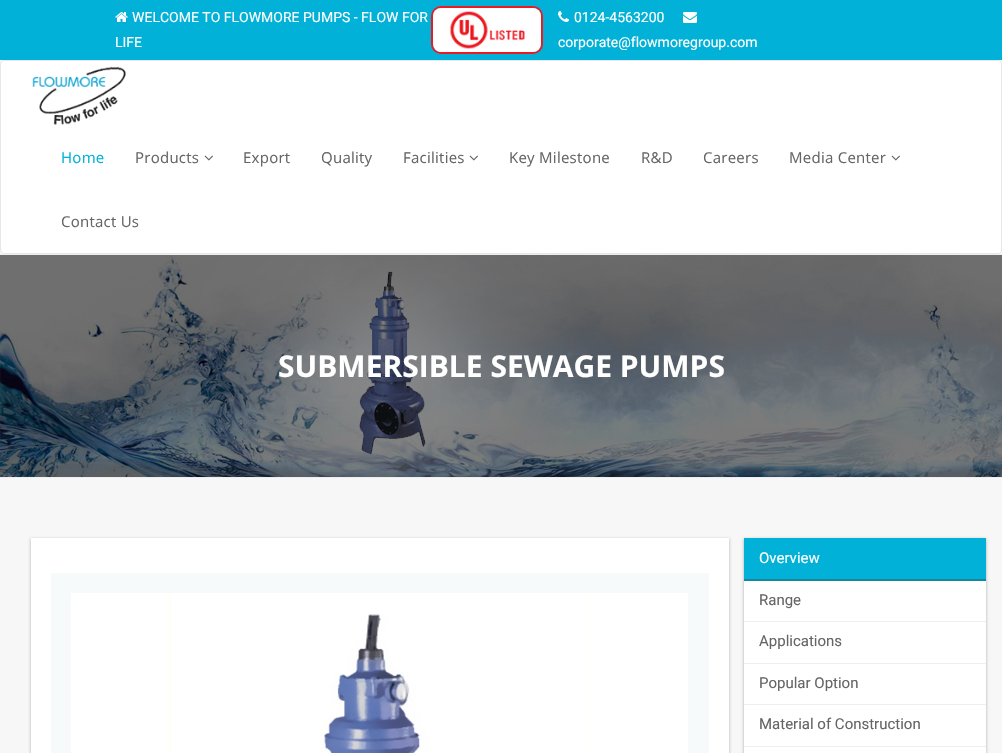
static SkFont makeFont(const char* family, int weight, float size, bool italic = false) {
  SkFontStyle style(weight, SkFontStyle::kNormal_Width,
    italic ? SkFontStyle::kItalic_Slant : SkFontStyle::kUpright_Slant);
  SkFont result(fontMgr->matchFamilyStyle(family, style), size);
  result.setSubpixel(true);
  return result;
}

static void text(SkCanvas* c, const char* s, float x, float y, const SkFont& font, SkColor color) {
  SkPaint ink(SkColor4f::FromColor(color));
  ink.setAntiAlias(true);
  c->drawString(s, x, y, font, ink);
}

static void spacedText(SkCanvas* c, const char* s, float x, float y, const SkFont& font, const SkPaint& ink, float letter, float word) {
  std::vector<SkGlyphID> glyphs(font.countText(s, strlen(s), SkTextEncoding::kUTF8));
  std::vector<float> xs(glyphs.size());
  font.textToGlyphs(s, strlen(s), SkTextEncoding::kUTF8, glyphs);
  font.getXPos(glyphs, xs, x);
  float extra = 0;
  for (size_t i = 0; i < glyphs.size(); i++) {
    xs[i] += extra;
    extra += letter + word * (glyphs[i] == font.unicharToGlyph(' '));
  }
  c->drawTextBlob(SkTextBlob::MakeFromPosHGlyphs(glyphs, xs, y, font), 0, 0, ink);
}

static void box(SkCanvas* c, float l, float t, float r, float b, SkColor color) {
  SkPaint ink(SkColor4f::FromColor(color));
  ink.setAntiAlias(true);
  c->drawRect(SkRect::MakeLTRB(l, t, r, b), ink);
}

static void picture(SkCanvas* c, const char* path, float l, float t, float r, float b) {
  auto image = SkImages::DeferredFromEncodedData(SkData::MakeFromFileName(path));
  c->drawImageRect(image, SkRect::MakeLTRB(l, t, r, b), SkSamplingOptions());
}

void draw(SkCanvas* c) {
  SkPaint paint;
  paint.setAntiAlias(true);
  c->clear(0xfff7f7f7);
  box(c, 0, 0, 1002, 60, 0xff01b1d7);
  picture(c, "img_01.png", 115, 12, 128, 22);
  SkFont face1 = makeFont("Roboto", 400, 14);
  text(c, "WELCOME TO FLOWMORE PUMPS - FLOW FOR", 132, 22, face1, 0xffffffff);
  text(c, "LIFE", 115, 47, face1, 0xffffffff);
  paint.setStyle(SkPaint::kStroke_Style);
  paint.setStrokeWidth(2);
  paint.setColor(0xffeb1922);
  c->drawRoundRect(SkRect::MakeLTRB(432, 7, 542, 53), 9, 9, paint);
  picture(c, "img_02.png", 433, 8, 541, 52);
  picture(c, "img_03.png", 558, 11, 569, 22);
  text(c, "0124-4563200", 574, 22, face1, 0xffffffff);
  picture(c, "img_04.png", 683, 12, 697, 23);
  text(c, "corporate@flowmoregroup.com", 558, 47, face1, 0xffffffff);
  paint.setStyle(SkPaint::kFill_Style);
  paint.setColor(0xffffffff);
  c->drawRoundRect(SkRect::MakeLTRB(0.5f, 60.5f, 1001.5f, 253.5f), 3.5f, 3.5f, paint);
  paint.setStyle(SkPaint::kStroke_Style);
  paint.setStrokeWidth(1);
  paint.setColor(0xffe7e7e7);
  c->drawRoundRect(SkRect::MakeLTRB(0.5f, 60.5f, 1001.5f, 253.5f), 3.5f, 3.5f, paint);
  picture(c, "img_05.png", 32, 66, 126, 125);
  SkFont face2 = makeFont("Open Sans", 400, 15);
  paint.setStyle(SkPaint::kFill_Style);
  paint.setColor(0xff01b1d7);
  spacedText(c, "Home", 61, 163, face2, paint, 0.25f, 0);
  paint.setColor(0xff656565);
  spacedText(c, "Products", 135, 163, face2, paint, 0.25f, 0);
  picture(c, "img_06.png", 204, 155, 213, 161);
  spacedText(c, "Export", 243, 163, face2, paint, 0.25f, 0);
  spacedText(c, "Quality", 321, 163, face2, paint, 0.25f, 0);
  spacedText(c, "Facilities", 403, 163, face2, paint, 0.25f, 0);
  picture(c, "img_06.png", 469, 155, 478, 161);
  spacedText(c, "Key Milestone", 509, 163, face2, paint, 0.25f, 0);
  spacedText(c, "R&D", 641, 163, face2, paint, 0.25f, 0);
  spacedText(c, "Careers", 703, 163, face2, paint, 0.25f, 0);
  spacedText(c, "Media Center", 789, 163, face2, paint, 0.25f, 0);
  picture(c, "img_06.png", 891, 155, 900, 161);
  spacedText(c, "Contact Us", 61, 227, face2, paint, 0.25f, 0);
  picture(c, "img_07.png", 0, 255, 1002, 477);
  box(c, 0, 254, 1002, 255, 0xffeeeeee);
  box(c, 0, 477, 1002, 478, 0xffeeeeee);
  SkFont face3 = makeFont("Open Sans", 700, 30);
  text(c, "SUBMERSIBLE SEWAGE PUMPS", 278, 377, face3, 0xffffffff);
  paint.setColor(0x4d000000);
  paint.setMaskFilter(SkMaskFilter::MakeBlur(kNormal_SkBlurStyle, 1.5f));
  c->drawRect(SkRect::MakeLTRB(31, 539, 729, 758), paint);
  paint.setMaskFilter(nullptr);
  box(c, 31, 538, 729, 753, 0xffffffff);
  box(c, 51, 573, 709, 753, 0xfff7fafb);
  picture(c, "img_08.png", 71, 593, 688, 753);
  paint.setMaskFilter(SkMaskFilter::MakeBlur(kNormal_SkBlurStyle, 1.5f));
  c->drawRect(SkRect::MakeLTRB(744, 539, 986, 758), paint);
  paint.setMaskFilter(nullptr);
  box(c, 744, 581, 986, 753, 0xffffffff);
  box(c, 744, 538, 986, 579, 0xff01b1d7);
  SkFont face4 = makeFont("Roboto", 400, 15);
  text(c, "Overview", 759, 563, face4, 0xffffffff);
  box(c, 744, 579, 986, 581, 0xff1387a0);
  box(c, 744, 621, 986, 622, 0xffeeeeee);
  text(c, "Range", 759, 605, face4, 0xff656565);
  box(c, 744, 663, 986, 664, 0xffeeeeee);
  text(c, "Applications", 759, 646, face4, 0xff656565);
  box(c, 744, 704, 986, 705, 0xffeeeeee);
  text(c, "Popular Option", 759, 688, face4, 0xff656565);
  box(c, 744, 746, 986, 747, 0xffeeeeee);
  text(c, "Material of Construction", 759, 729, face4, 0xff656565);
}
